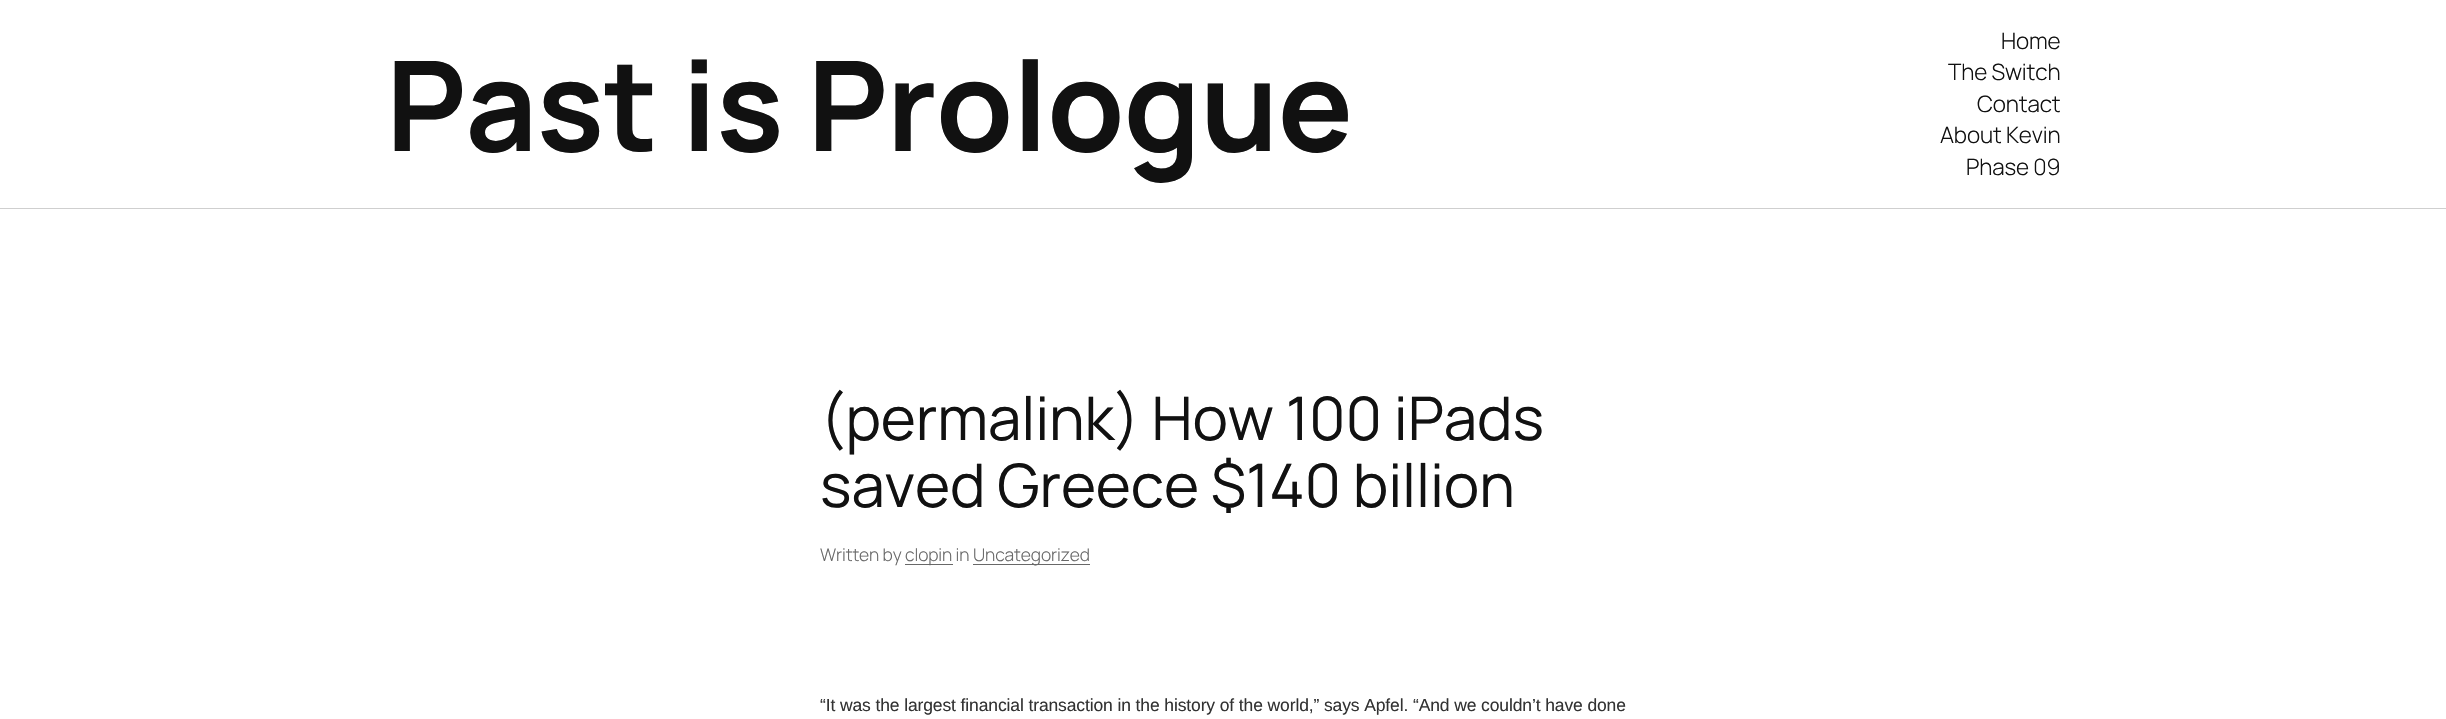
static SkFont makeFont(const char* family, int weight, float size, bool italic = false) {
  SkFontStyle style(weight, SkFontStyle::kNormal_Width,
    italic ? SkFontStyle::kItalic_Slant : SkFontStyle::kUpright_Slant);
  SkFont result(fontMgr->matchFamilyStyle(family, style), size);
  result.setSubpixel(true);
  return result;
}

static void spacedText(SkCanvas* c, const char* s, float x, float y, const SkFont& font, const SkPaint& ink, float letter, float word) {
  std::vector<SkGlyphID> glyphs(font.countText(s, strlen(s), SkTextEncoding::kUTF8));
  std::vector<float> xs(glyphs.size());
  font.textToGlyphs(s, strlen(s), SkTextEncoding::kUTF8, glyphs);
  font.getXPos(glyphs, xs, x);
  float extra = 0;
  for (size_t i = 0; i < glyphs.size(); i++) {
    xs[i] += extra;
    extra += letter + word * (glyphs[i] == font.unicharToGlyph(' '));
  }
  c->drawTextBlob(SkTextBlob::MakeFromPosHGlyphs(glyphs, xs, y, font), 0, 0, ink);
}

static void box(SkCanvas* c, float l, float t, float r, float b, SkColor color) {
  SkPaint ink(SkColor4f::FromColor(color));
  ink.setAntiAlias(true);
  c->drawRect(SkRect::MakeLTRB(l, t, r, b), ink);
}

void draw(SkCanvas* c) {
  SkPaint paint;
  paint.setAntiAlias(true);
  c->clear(0xffffffff);
  box(c, 0, 208, 2446, 209, 0xffcfcfcf);
  SkFont face1 = makeFont("Manrope", 700, 125);
  paint.setColor(0xff111111);
  spacedText(c, "Past is Prologue", 386, 151, face1, paint, -0.6f, 0);
  SkFont face2 = makeFont("Manrope", 300, 22.5f);
  spacedText(c, "Home", 2001, 49, face2, paint, -0.12f, 0);
  spacedText(c, "The Switch", 1948, 80, face2, paint, -0.12f, 0);
  spacedText(c, "Contact", 1977, 112, face2, paint, -0.12f, 0);
  spacedText(c, "About Kevin", 1940, 143, face2, paint, -0.12f, 0);
  spacedText(c, "Phase 09", 1966, 175, face2, paint, -0.12f, 0);
  SkFont face3 = makeFont("Manrope", 400, 60);
  spacedText(c, "(permalink) How 100 iPads", 820, 440, face3, paint, -0.12f, 0);
  spacedText(c, "saved Greece $140 billion", 820, 507, face3, paint, -0.12f, 0);
  SkFont face4 = makeFont("Manrope", 300, 17.5f);
  paint.setColor(0xff686868);
  spacedText(c, "Written by", 820, 561, face4, paint, -0.12f, 0);
  box(c, 905, 564, 953, 565, 0xff686868);
  spacedText(c, "clopin in", 905, 561, face4, paint, -0.12f, 0);
  box(c, 973, 564, 1090, 565, 0xff686868);
  spacedText(c, "Uncategorized", 973, 561, face4, paint, -0.12f, 0);
  SkFont face5 = makeFont("Liberation Sans", 400, 17.5f);
  paint.setColor(0xff333333);
  spacedText(c, "“It was the largest financial transaction in the history of the world,” says Apfel. “And we couldn’t have done", 820, 711, face5, paint, -0.12f, 0);
}
